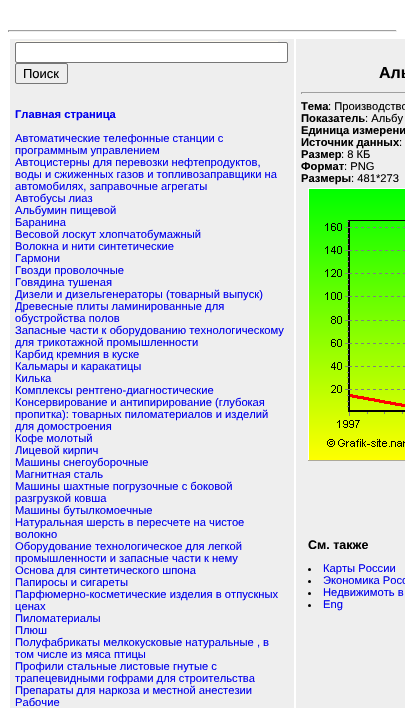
static SkFont makeFont(const char* family, int weight, float size, bool italic = false) {
  SkFontStyle style(weight, SkFontStyle::kNormal_Width,
    italic ? SkFontStyle::kItalic_Slant : SkFontStyle::kUpright_Slant);
  SkFont result(fontMgr->matchFamilyStyle(family, style), size);
  result.setSubpixel(true);
  return result;
}

static void text(SkCanvas* c, const char* s, float x, float y, const SkFont& font, SkColor color) {
  SkPaint ink(SkColor4f::FromColor(color));
  ink.setAntiAlias(true);
  c->drawString(s, x, y, font, ink);
}

static void box(SkCanvas* c, float l, float t, float r, float b, SkColor color) {
  SkPaint ink(SkColor4f::FromColor(color));
  ink.setAntiAlias(true);
  c->drawRect(SkRect::MakeLTRB(l, t, r, b), ink);
}

static void picture(SkCanvas* c, const char* path, float l, float t, float r, float b) {
  auto image = SkImages::DeferredFromEncodedData(SkData::MakeFromFileName(path));
  c->drawImageRect(image, SkRect::MakeLTRB(l, t, r, b), SkSamplingOptions());
}

void draw(SkCanvas* c) {
  SkPaint paint;
  paint.setAntiAlias(true);
  c->clear(0xffffffff);
  box(c, 8, 30, 397, 31, 0xff9f9f9f);
  box(c, 396, 30, 397, 32, 0xffeeeeee);
  box(c, 8, 31, 397, 32, 0xffeeeeee);
  box(c, 8, 30, 9, 32, 0xff9f9f9f);
  box(c, 10, 39, 294, 708, 0xffeeeeee);
  box(c, 15, 41, 278, 42, 0xfffffbf0);
  paint.setColor(0xffffffff);
  c->drawRoundRect(SkRect::MakeLTRB(15.5f, 42.5f, 287.5f, 62.5f), 1.5f, 1.5f, paint);
  paint.setStyle(SkPaint::kStroke_Style);
  paint.setStrokeWidth(1);
  paint.setColor(0xff767676);
  c->drawRoundRect(SkRect::MakeLTRB(15.5f, 42.5f, 287.5f, 62.5f), 1.5f, 1.5f, paint);
  c->drawRoundRect(SkRect::MakeLTRB(15.5f, 63.5f, 67.5f, 83.5f), 1.5f, 1.5f, paint);
  SkFont face1 = makeFont("Liberation Sans", 400, 13);
  text(c, "Поиск", 23, 78, face1, 0xff000000);
  SkFont face2 = makeFont("Liberation Sans", 700, 11.2f);
  text(c, "Главная страница", 15, 118, face2, 0xff0000ee);
  SkFont face3 = makeFont("Liberation Sans", 400, 11.2f);
  text(c, "Автоматические телефонные станции с", 15, 142, face3, 0xff0000ee);
  text(c, "программным управлением", 15, 154, face3, 0xff0000ee);
  text(c, "Автоцистерны для перевозки нефтепродуктов,", 15, 166, face3, 0xff0000ee);
  text(c, "воды и сжиженных газов и топливозаправщики на", 15, 178, face3, 0xff0000ee);
  text(c, "автомобилях, заправочные агрегаты", 15, 190, face3, 0xff0000ee);
  text(c, "Автобусы лиаз", 15, 202, face3, 0xff0000ee);
  text(c, "Альбумин пищевой", 15, 214, face3, 0xff0000ee);
  text(c, "Баранина", 15, 226, face3, 0xff0000ee);
  text(c, "Весовой лоскут хлопчатобумажный", 15, 238, face3, 0xff0000ee);
  text(c, "Волокна и нити синтетические", 15, 250, face3, 0xff0000ee);
  text(c, "Гармони", 15, 262, face3, 0xff0000ee);
  text(c, "Гвозди проволочные", 15, 274, face3, 0xff0000ee);
  text(c, "Говядина тушеная", 15, 286, face3, 0xff0000ee);
  text(c, "Дизели и дизельгенераторы (товарный выпуск)", 15, 298, face3, 0xff0000ee);
  text(c, "Древесные плиты ламинированные для", 15, 310, face3, 0xff0000ee);
  text(c, "обустройства полов", 15, 322, face3, 0xff0000ee);
  text(c, "Запасные части к оборудованию технологическому", 15, 334, face3, 0xff0000ee);
  text(c, "для трикотажной промышленности", 15, 346, face3, 0xff0000ee);
  text(c, "Карбид кремния в куске", 15, 358, face3, 0xff0000ee);
  text(c, "Кальмары и каракатицы", 15, 370, face3, 0xff0000ee);
  text(c, "Килька", 15, 382, face3, 0xff0000ee);
  text(c, "Комплексы рентгено-диагностические", 15, 394, face3, 0xff0000ee);
  text(c, "Консервирование и антипирирование (глубокая", 15, 406, face3, 0xff0000ee);
  text(c, "пропитка): товарных пиломатериалов и изделий", 15, 418, face3, 0xff0000ee);
  text(c, "для домостроения", 15, 430, face3, 0xff0000ee);
  text(c, "Кофе молотый", 15, 442, face3, 0xff0000ee);
  text(c, "Лицевой кирпич", 15, 454, face3, 0xff0000ee);
  text(c, "Машины снегоуборочные", 15, 466, face3, 0xff0000ee);
  text(c, "Магнитная сталь", 15, 478, face3, 0xff0000ee);
  text(c, "Машины шахтные погрузочные с боковой", 15, 490, face3, 0xff0000ee);
  text(c, "разгрузкой ковша", 15, 502, face3, 0xff0000ee);
  text(c, "Машины бутылкомоечные", 15, 514, face3, 0xff0000ee);
  text(c, "Натуральная шерсть в пересчете на чистое", 15, 526, face3, 0xff0000ee);
  text(c, "волокно", 15, 538, face3, 0xff0000ee);
  text(c, "Оборудование технологическое для легкой", 15, 550, face3, 0xff0000ee);
  text(c, "промышленности и запасные части к нему", 15, 562, face3, 0xff0000ee);
  text(c, "Основа для синтетического шпона", 15, 574, face3, 0xff0000ee);
  text(c, "Папиросы и сигареты", 15, 586, face3, 0xff0000ee);
  text(c, "Парфюмерно-косметические изделия в отпускных", 15, 598, face3, 0xff0000ee);
  text(c, "ценах", 15, 610, face3, 0xff0000ee);
  text(c, "Пиломатериалы", 15, 622, face3, 0xff0000ee);
  text(c, "Плюш", 15, 634, face3, 0xff0000ee);
  text(c, "Полуфабрикаты мелкокусковые натуральные , в", 15, 646, face3, 0xff0000ee);
  text(c, "том числе из мяса птицы", 15, 658, face3, 0xff0000ee);
  text(c, "Профили стальные листовые гнутые с", 15, 670, face3, 0xff0000ee);
  text(c, "трапецевидными гофрами для строительства", 15, 682, face3, 0xff0000ee);
  text(c, "Препараты для наркоза и местной анестезии", 15, 694, face3, 0xff0000ee);
  text(c, "Рабочие", 15, 706, face3, 0xff0000ee);
  box(c, 296, 39, 405, 708, 0xffeeeeee);
  SkFont face4 = makeFont("Liberation Sans", 700, 16);
  text(c, "Аль", 379, 78, face4, 0xff000000);
  box(c, 301, 92, 405, 93, 0xff9f9f9f);
  box(c, 301, 92, 302, 94, 0xff9f9f9f);
  text(c, "Тема", 301, 110, face2, 0xff000000);
  text(c, ": Производство", 328, 110, face3, 0xff000000);
  text(c, "Показатель", 301, 122, face2, 0xff000000);
  text(c, ": Альбу", 365, 122, face3, 0xff000000);
  text(c, "Единица измерени", 301, 134, face2, 0xff000000);
  text(c, "Источник данных", 301, 146, face2, 0xff000000);
  text(c, ":", 399, 146, face3, 0xff000000);
  text(c, "Размер", 301, 158, face2, 0xff000000);
  text(c, ": 8 КБ", 341, 158, face3, 0xff000000);
  text(c, "Формат", 301, 170, face2, 0xff000000);
  text(c, ": PNG", 344, 170, face3, 0xff000000);
  text(c, "Размеры", 301, 182, face2, 0xff000000);
  text(c, ": 481*273", 351, 182, face3, 0xff000000);
  picture(c, "img_01.png", 308, 188, 405, 461);
  SkFont face5 = makeFont("Liberation Sans", 700, 12.5f);
  text(c, "См. также", 308, 549, face5, 0xff000000);
  paint.setStyle(SkPaint::kFill_Style);
  paint.setColor(0xff000000);
  c->drawCircle(309.5f, 569.5f, 1.5f, paint);
  text(c, "Карты России", 323, 572, face3, 0xff0000ee);
  c->drawCircle(309.5f, 581.5f, 1.5f, paint);
  text(c, "Экономика Росс", 323, 584, face3, 0xff0000ee);
  c->drawCircle(309.5f, 593.5f, 1.5f, paint);
  text(c, "Недвижимоть в", 323, 596, face3, 0xff0000ee);
  c->drawCircle(309.5f, 605.5f, 1.5f, paint);
  text(c, "Eng", 323, 608, face3, 0xff0000ee);
}
